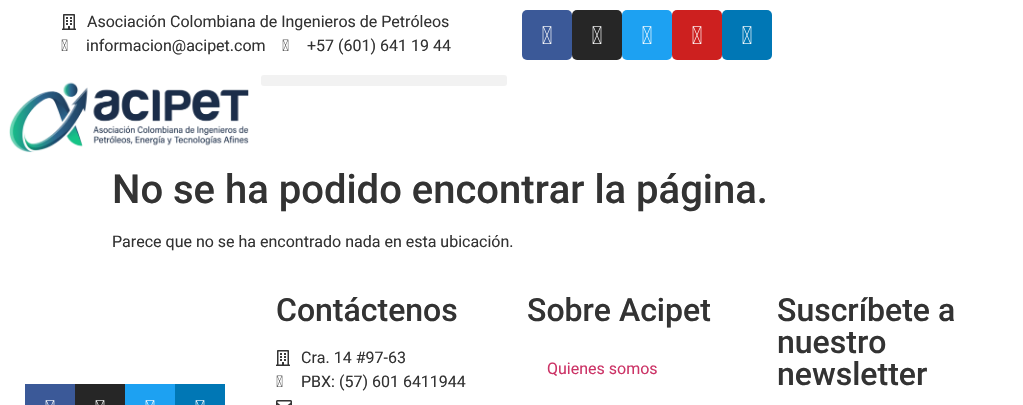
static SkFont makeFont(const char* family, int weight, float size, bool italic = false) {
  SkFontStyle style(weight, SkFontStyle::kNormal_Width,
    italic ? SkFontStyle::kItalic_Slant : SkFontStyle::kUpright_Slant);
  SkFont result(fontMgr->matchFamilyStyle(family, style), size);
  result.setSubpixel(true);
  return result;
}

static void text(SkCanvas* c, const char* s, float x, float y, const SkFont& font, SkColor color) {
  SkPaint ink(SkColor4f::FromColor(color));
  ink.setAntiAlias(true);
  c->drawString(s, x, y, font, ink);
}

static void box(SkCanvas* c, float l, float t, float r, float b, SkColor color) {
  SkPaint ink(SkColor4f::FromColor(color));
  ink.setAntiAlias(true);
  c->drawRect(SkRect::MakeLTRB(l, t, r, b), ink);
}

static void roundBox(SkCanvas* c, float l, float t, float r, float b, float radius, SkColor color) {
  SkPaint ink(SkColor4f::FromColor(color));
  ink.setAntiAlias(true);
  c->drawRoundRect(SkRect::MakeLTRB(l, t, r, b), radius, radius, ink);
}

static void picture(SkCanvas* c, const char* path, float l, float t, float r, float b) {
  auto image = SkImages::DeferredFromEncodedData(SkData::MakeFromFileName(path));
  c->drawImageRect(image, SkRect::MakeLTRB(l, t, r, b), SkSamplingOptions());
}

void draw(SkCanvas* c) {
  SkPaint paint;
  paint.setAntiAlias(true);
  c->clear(0xffffffff);
  picture(c, "img_01.png", 62, 14, 76, 30);
  SkFont face1 = makeFont("Roboto", 400, 16);
  text(c, "Asociación Colombiana de Ingenieros de Petróleos", 87, 27, face1, 0xff333333);
  picture(c, "img_02.png", 61, 39, 68, 51);
  text(c, "informacion@acipet.com", 86, 51, face1, 0xff333333);
  picture(c, "img_02.png", 282, 39, 289, 51);
  text(c, "+57 (601) 641 19 44", 307, 51, face1, 0xff333333);
  roundBox(c, 522, 10, 572, 60, 5, 0xff3b5998);
  picture(c, "img_03.png", 542, 26, 552, 44);
  roundBox(c, 572, 10, 622, 60, 5, 0xff262626);
  picture(c, "img_04.png", 592, 26, 602, 44);
  roundBox(c, 622, 10, 672, 60, 5, 0xff1da1f2);
  picture(c, "img_05.png", 642, 26, 652, 44);
  roundBox(c, 672, 10, 722, 60, 5, 0xffcd201f);
  picture(c, "img_06.png", 692, 26, 702, 44);
  roundBox(c, 722, 10, 772, 60, 5, 0xff0077b5);
  picture(c, "img_07.png", 742, 26, 752, 44);
  roundBox(c, 261, 75, 507, 86, 3, 0xfff2f2f2);
  picture(c, "img_08.png", 9, 82, 249, 153);
  SkFont face2 = makeFont("Roboto", 500, 40);
  text(c, "No se ha podido encontrar la página.", 112, 203, face2, 0xff333333);
  text(c, "Parece que no se ha encontrado nada en esta ubicación.", 112, 247, face1, 0xff333333);
  SkFont face3 = makeFont("Roboto", 500, 32);
  text(c, "Contáctenos", 276, 321, face3, 0xff333333);
  picture(c, "img_01.png", 276, 350, 290, 366);
  text(c, "Cra. 14 #97-63", 301, 363, face1, 0xff333333);
  picture(c, "img_02.png", 276, 375, 283, 387);
  text(c, "PBX: (57) 601 6411944", 301, 387, face1, 0xff333333);
  picture(c, "img_09.png", 276, 400, 292, 405);
  text(c, "Sobre Acipet", 527, 321, face3, 0xff333333);
  text(c, "Quienes somos", 547, 374, face1, 0xffcc3366);
  text(c, "Suscríbete a", 777, 321, face3, 0xff333333);
  text(c, "nuestro", 777, 353, face3, 0xff333333);
  text(c, "newsletter", 777, 385, face3, 0xff333333);
  box(c, 25, 384, 75, 405, 0xff3b5998);
  picture(c, "img_10.png", 45, 400, 55, 405);
  box(c, 75, 384, 125, 405, 0xff262626);
  picture(c, "img_11.png", 95, 400, 105, 405);
  box(c, 125, 384, 175, 405, 0xff1da1f2);
  picture(c, "img_12.png", 145, 400, 155, 405);
  box(c, 175, 384, 225, 405, 0xff0077b5);
  picture(c, "img_13.png", 195, 400, 205, 405);
}
